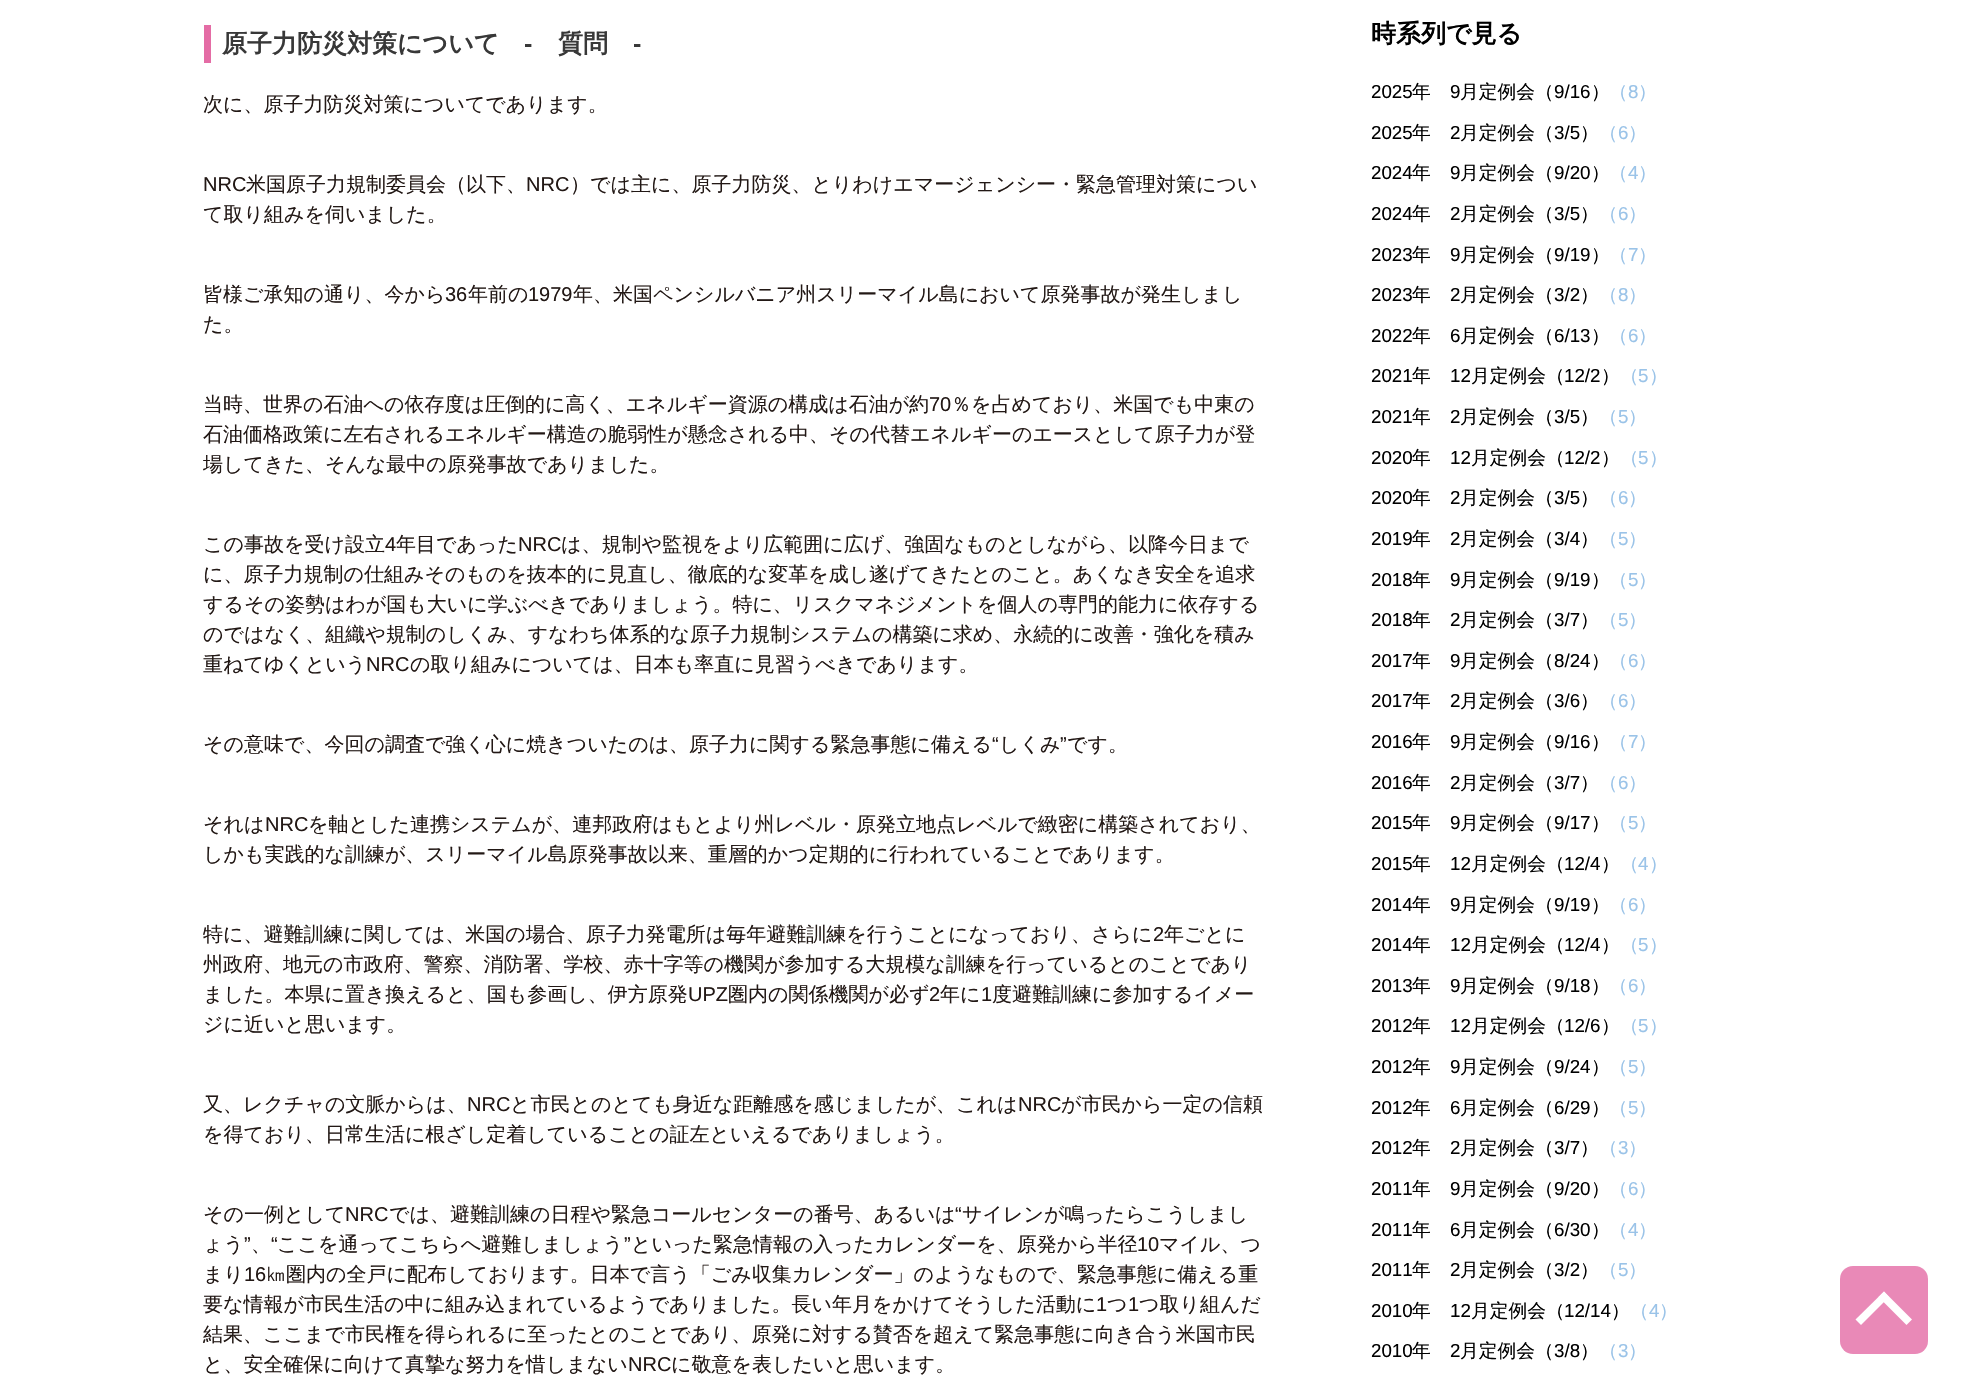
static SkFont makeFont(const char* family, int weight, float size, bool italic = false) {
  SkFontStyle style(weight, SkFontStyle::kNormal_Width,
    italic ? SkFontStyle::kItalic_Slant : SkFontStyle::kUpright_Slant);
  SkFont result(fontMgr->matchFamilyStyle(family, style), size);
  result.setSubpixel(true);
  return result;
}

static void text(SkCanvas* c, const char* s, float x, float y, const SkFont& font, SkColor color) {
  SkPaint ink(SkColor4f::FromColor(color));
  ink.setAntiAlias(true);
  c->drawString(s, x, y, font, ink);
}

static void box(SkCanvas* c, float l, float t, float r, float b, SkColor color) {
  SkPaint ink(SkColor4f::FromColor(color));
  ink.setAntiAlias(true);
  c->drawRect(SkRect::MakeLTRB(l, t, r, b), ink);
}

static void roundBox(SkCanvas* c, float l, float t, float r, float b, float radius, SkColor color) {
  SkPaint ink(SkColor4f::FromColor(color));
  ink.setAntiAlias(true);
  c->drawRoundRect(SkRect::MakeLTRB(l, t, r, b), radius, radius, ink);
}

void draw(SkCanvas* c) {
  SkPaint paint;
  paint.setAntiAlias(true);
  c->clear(0xffffffff);
  box(c, 204, 25, 211, 63, 0xffe46ca5);
  SkFont face1 = makeFont("WenQuanYi Zen Hei", 700, 25);
  text(c, "原子力防災対策について", 222, 52, face1, 0xff383838);
  SkFont face2 = makeFont("Liberation Sans", 700, 25);
  text(c, "-", 524, 52, face2, 0xff383838);
  text(c, "質問", 558, 52, face1, 0xff383838);
  text(c, "-", 633, 52, face2, 0xff383838);
  SkFont face3 = makeFont("WenQuanYi Zen Hei", 500, 20);
  text(c, "次に、原子力防災対策についてであります。", 203, 111, face3, 0xff221815);
  SkFont face4 = makeFont("Liberation Sans", 400, 20);
  text(c, "NRC", 203, 191, face4, 0xff221815);
  text(c, "米国原子力規制委員会（以下、", 246, 191, face3, 0xff221815);
  text(c, "NRC", 526, 191, face4, 0xff221815);
  text(c, "）では主に、原子力防災、とりわけエマージェンシー・緊急管理対策につい", 570, 191, face3, 0xff221815);
  text(c, "て取り組みを伺いました。", 203, 221, face3, 0xff221815);
  text(c, "皆様ご承知の通り、今から", 203, 301, face3, 0xff221815);
  text(c, "36", 445, 301, face4, 0xff221815);
  text(c, "年前の", 468, 301, face3, 0xff221815);
  text(c, "1979", 528, 301, face4, 0xff221815);
  text(c, "年、米国ペンシルバニア州スリーマイル島において原発事故が発生しまし", 573, 301, face3, 0xff221815);
  text(c, "た。", 203, 331, face3, 0xff221815);
  text(c, "当時、世界の石油への依存度は圧倒的に高く、エネルギー資源の構成は石油が約", 203, 411, face3, 0xff221815);
  text(c, "70", 929, 411, face4, 0xff221815);
  text(c, "％を占めており、米国でも中東の", 951, 411, face3, 0xff221815);
  text(c, "石油価格政策に左右されるエネルギー構造の脆弱性が懸念される中、その代替エネルギーのエースとして原子力が登", 203, 441, face3, 0xff221815);
  text(c, "場してきた、そんな最中の原発事故でありました。", 203, 471, face3, 0xff221815);
  text(c, "この事故を受け設立", 203, 551, face3, 0xff221815);
  text(c, "4", 385, 551, face4, 0xff221815);
  text(c, "年目であった", 396, 551, face3, 0xff221815);
  text(c, "NRC", 518, 551, face4, 0xff221815);
  text(c, "は、規制や監視をより広範囲に広げ、強固なものとしながら、以降今日まで", 561, 551, face3, 0xff221815);
  text(c, "に、原子力規制の仕組みそのものを抜本的に見直し、徹底的な変革を成し遂げてきたとのこと。あくなき安全を追求", 203, 581, face3, 0xff221815);
  text(c, "するその姿勢はわが国も大いに学ぶべきでありましょう。特に、リスクマネジメントを個人の専門的能力に依存する", 203, 611, face3, 0xff221815);
  text(c, "のではなく、組織や規制のしくみ、すなわち体系的な原子力規制システムの構築に求め、永続的に改善・強化を積み", 203, 641, face3, 0xff221815);
  text(c, "重ねてゆくという", 203, 671, face3, 0xff221815);
  text(c, "NRC", 366, 671, face4, 0xff221815);
  text(c, "の取り組みについては、日本も率直に見習うべきであります。", 410, 671, face3, 0xff221815);
  text(c, "その意味で、今回の調査で強く心に焼きついたのは、原子力に関する緊急事態に備える", 203, 751, face3, 0xff221815);
  text(c, "“", 992, 751, face4, 0xff221815);
  text(c, "しくみ", 999, 751, face3, 0xff221815);
  text(c, "”", 1060, 751, face4, 0xff221815);
  text(c, "です。", 1067, 751, face3, 0xff221815);
  text(c, "それは", 203, 831, face3, 0xff221815);
  text(c, "NRC", 265, 831, face4, 0xff221815);
  text(c, "を軸とした連携システムが、連邦政府はもとより州レベル・原発立地点レベルで緻密に構築されており、", 308, 831, face3, 0xff221815);
  text(c, "しかも実践的な訓練が、スリーマイル島原発事故以来、重層的かつ定期的に行われていることであります。", 203, 861, face3, 0xff221815);
  text(c, "特に、避難訓練に関しては、米国の場合、原子力発電所は毎年避難訓練を行うことになっており、さらに", 203, 941, face3, 0xff221815);
  text(c, "2", 1153, 941, face4, 0xff221815);
  text(c, "年ごとに", 1164, 941, face3, 0xff221815);
  text(c, "州政府、地元の市政府、警察、消防署、学校、赤十字等の機関が参加する大規模な訓練を行っているとのことであり", 203, 971, face3, 0xff221815);
  text(c, "ました。本県に置き換えると、国も参画し、伊方原発", 203, 1001, face3, 0xff221815);
  text(c, "UPZ", 688, 1001, face4, 0xff221815);
  text(c, "圏内の関係機関が必ず", 728, 1001, face3, 0xff221815);
  text(c, "2", 929, 1001, face4, 0xff221815);
  text(c, "年に", 940, 1001, face3, 0xff221815);
  text(c, "1", 981, 1001, face4, 0xff221815);
  text(c, "度避難訓練に参加するイメー", 992, 1001, face3, 0xff221815);
  text(c, "ジに近いと思います。", 203, 1031, face3, 0xff221815);
  text(c, "又、レクチャの文脈からは、", 203, 1111, face3, 0xff221815);
  text(c, "NRC", 467, 1111, face4, 0xff221815);
  text(c, "と市民とのとても身近な距離感を感じましたが、これは", 510, 1111, face3, 0xff221815);
  text(c, "NRC", 1018, 1111, face4, 0xff221815);
  text(c, "が市民から一定の信頼", 1061, 1111, face3, 0xff221815);
  text(c, "を得ており、日常生活に根ざし定着していることの証左といえるでありましょう。", 203, 1141, face3, 0xff221815);
  text(c, "その一例として", 203, 1221, face3, 0xff221815);
  text(c, "NRC", 345, 1221, face4, 0xff221815);
  text(c, "では、避難訓練の日程や緊急コールセンターの番号、あるいは", 389, 1221, face3, 0xff221815);
  text(c, "“", 955, 1221, face4, 0xff221815);
  text(c, "サイレンが鳴ったらこうしまし", 962, 1221, face3, 0xff221815);
  text(c, "ょう", 203, 1251, face3, 0xff221815);
  text(c, "”", 244, 1251, face4, 0xff221815);
  text(c, "、", 251, 1251, face3, 0xff221815);
  text(c, "“", 271, 1251, face4, 0xff221815);
  text(c, "ここを通ってこちらへ避難しましょう", 277, 1251, face3, 0xff221815);
  text(c, "”", 624, 1251, face4, 0xff221815);
  text(c, "といった緊急情報の入ったカレンダーを、原発から半径", 631, 1251, face3, 0xff221815);
  text(c, "10", 1137, 1251, face4, 0xff221815);
  text(c, "マイル、つ", 1159, 1251, face3, 0xff221815);
  text(c, "まり", 203, 1281, face3, 0xff221815);
  text(c, "16", 244, 1281, face4, 0xff221815);
  text(c, "㎞圏内の全戸に配布しております。日本で言う「ごみ収集カレンダー」のようなもので、緊急事態に備える重", 266, 1281, face3, 0xff221815);
  text(c, "要な情報が市民生活の中に組み込まれているようでありました。長い年月をかけてそうした活動に", 203, 1311, face3, 0xff221815);
  text(c, "1", 1096, 1311, face4, 0xff221815);
  text(c, "つ", 1107, 1311, face3, 0xff221815);
  text(c, "1", 1128, 1311, face4, 0xff221815);
  text(c, "つ取り組んだ", 1139, 1311, face3, 0xff221815);
  text(c, "結果、ここまで市民権を得られるに至ったとのことであり、原発に対する賛否を超えて緊急事態に向き合う米国市民", 203, 1341, face3, 0xff221815);
  text(c, "と、安全確保に向けて真摯な努力を惜しまない", 203, 1371, face3, 0xff221815);
  text(c, "NRC", 628, 1371, face4, 0xff221815);
  text(c, "に敬意を表したいと思います。", 671, 1371, face3, 0xff221815);
  text(c, "時系列で見る", 1371, 42, face1, 0xff000000);
  SkFont face5 = makeFont("Liberation Sans", 400, 18.75f);
  text(c, "2025", 1371, 98, face5, 0xff000000);
  SkFont face6 = makeFont("WenQuanYi Zen Hei", 500, 18.75f);
  text(c, "年", 1412, 98, face6, 0xff000000);
  text(c, "9", 1450, 98, face5, 0xff000000);
  text(c, "月定例会（", 1460, 98, face6, 0xff000000);
  text(c, "9/16", 1554, 98, face5, 0xff000000);
  text(c, "）", 1591, 98, face6, 0xff000000);
  text(c, "（", 1609, 98, face6, 0xff9ac3e8);
  text(c, "8", 1628, 98, face5, 0xff9ac3e8);
  text(c, "）", 1638, 98, face6, 0xff9ac3e8);
  text(c, "2025", 1371, 139, face5, 0xff000000);
  text(c, "年", 1412, 139, face6, 0xff000000);
  text(c, "2", 1450, 139, face5, 0xff000000);
  text(c, "月定例会（", 1460, 139, face6, 0xff000000);
  text(c, "3/5", 1554, 139, face5, 0xff000000);
  text(c, "）", 1580, 139, face6, 0xff000000);
  text(c, "（", 1599, 139, face6, 0xff9ac3e8);
  text(c, "6", 1618, 139, face5, 0xff9ac3e8);
  text(c, "）", 1628, 139, face6, 0xff9ac3e8);
  text(c, "2024", 1371, 179, face5, 0xff000000);
  text(c, "年", 1412, 179, face6, 0xff000000);
  text(c, "9", 1450, 179, face5, 0xff000000);
  text(c, "月定例会（", 1460, 179, face6, 0xff000000);
  text(c, "9/20", 1554, 179, face5, 0xff000000);
  text(c, "）", 1591, 179, face6, 0xff000000);
  text(c, "（", 1609, 179, face6, 0xff9ac3e8);
  text(c, "4", 1628, 179, face5, 0xff9ac3e8);
  text(c, "）", 1638, 179, face6, 0xff9ac3e8);
  text(c, "2024", 1371, 220, face5, 0xff000000);
  text(c, "年", 1412, 220, face6, 0xff000000);
  text(c, "2", 1450, 220, face5, 0xff000000);
  text(c, "月定例会（", 1460, 220, face6, 0xff000000);
  text(c, "3/5", 1554, 220, face5, 0xff000000);
  text(c, "）", 1580, 220, face6, 0xff000000);
  text(c, "（", 1599, 220, face6, 0xff9ac3e8);
  text(c, "6", 1618, 220, face5, 0xff9ac3e8);
  text(c, "）", 1628, 220, face6, 0xff9ac3e8);
  text(c, "2023", 1371, 261, face5, 0xff000000);
  text(c, "年", 1412, 261, face6, 0xff000000);
  text(c, "9", 1450, 261, face5, 0xff000000);
  text(c, "月定例会（", 1460, 261, face6, 0xff000000);
  text(c, "9/19", 1554, 261, face5, 0xff000000);
  text(c, "）", 1591, 261, face6, 0xff000000);
  text(c, "（", 1609, 261, face6, 0xff9ac3e8);
  text(c, "7", 1628, 261, face5, 0xff9ac3e8);
  text(c, "）", 1638, 261, face6, 0xff9ac3e8);
  text(c, "2023", 1371, 301, face5, 0xff000000);
  text(c, "年", 1412, 301, face6, 0xff000000);
  text(c, "2", 1450, 301, face5, 0xff000000);
  text(c, "月定例会（", 1460, 301, face6, 0xff000000);
  text(c, "3/2", 1554, 301, face5, 0xff000000);
  text(c, "）", 1580, 301, face6, 0xff000000);
  text(c, "（", 1599, 301, face6, 0xff9ac3e8);
  text(c, "8", 1618, 301, face5, 0xff9ac3e8);
  text(c, "）", 1628, 301, face6, 0xff9ac3e8);
  text(c, "2022", 1371, 342, face5, 0xff000000);
  text(c, "年", 1412, 342, face6, 0xff000000);
  text(c, "6", 1450, 342, face5, 0xff000000);
  text(c, "月定例会（", 1460, 342, face6, 0xff000000);
  text(c, "6/13", 1554, 342, face5, 0xff000000);
  text(c, "）", 1591, 342, face6, 0xff000000);
  text(c, "（", 1609, 342, face6, 0xff9ac3e8);
  text(c, "6", 1628, 342, face5, 0xff9ac3e8);
  text(c, "）", 1638, 342, face6, 0xff9ac3e8);
  text(c, "2021", 1371, 382, face5, 0xff000000);
  text(c, "年", 1412, 382, face6, 0xff000000);
  text(c, "12", 1450, 382, face5, 0xff000000);
  text(c, "月定例会（", 1471, 382, face6, 0xff000000);
  text(c, "12/2", 1564, 382, face5, 0xff000000);
  text(c, "）", 1601, 382, face6, 0xff000000);
  text(c, "（", 1620, 382, face6, 0xff9ac3e8);
  text(c, "5", 1638, 382, face5, 0xff9ac3e8);
  text(c, "）", 1649, 382, face6, 0xff9ac3e8);
  text(c, "2021", 1371, 423, face5, 0xff000000);
  text(c, "年", 1412, 423, face6, 0xff000000);
  text(c, "2", 1450, 423, face5, 0xff000000);
  text(c, "月定例会（", 1460, 423, face6, 0xff000000);
  text(c, "3/5", 1554, 423, face5, 0xff000000);
  text(c, "）", 1580, 423, face6, 0xff000000);
  text(c, "（", 1599, 423, face6, 0xff9ac3e8);
  text(c, "5", 1618, 423, face5, 0xff9ac3e8);
  text(c, "）", 1628, 423, face6, 0xff9ac3e8);
  text(c, "2020", 1371, 464, face5, 0xff000000);
  text(c, "年", 1412, 464, face6, 0xff000000);
  text(c, "12", 1450, 464, face5, 0xff000000);
  text(c, "月定例会（", 1471, 464, face6, 0xff000000);
  text(c, "12/2", 1564, 464, face5, 0xff000000);
  text(c, "）", 1601, 464, face6, 0xff000000);
  text(c, "（", 1620, 464, face6, 0xff9ac3e8);
  text(c, "5", 1638, 464, face5, 0xff9ac3e8);
  text(c, "）", 1649, 464, face6, 0xff9ac3e8);
  text(c, "2020", 1371, 504, face5, 0xff000000);
  text(c, "年", 1412, 504, face6, 0xff000000);
  text(c, "2", 1450, 504, face5, 0xff000000);
  text(c, "月定例会（", 1460, 504, face6, 0xff000000);
  text(c, "3/5", 1554, 504, face5, 0xff000000);
  text(c, "）", 1580, 504, face6, 0xff000000);
  text(c, "（", 1599, 504, face6, 0xff9ac3e8);
  text(c, "6", 1618, 504, face5, 0xff9ac3e8);
  text(c, "）", 1628, 504, face6, 0xff9ac3e8);
  text(c, "2019", 1371, 545, face5, 0xff000000);
  text(c, "年", 1412, 545, face6, 0xff000000);
  text(c, "2", 1450, 545, face5, 0xff000000);
  text(c, "月定例会（", 1460, 545, face6, 0xff000000);
  text(c, "3/4", 1554, 545, face5, 0xff000000);
  text(c, "）", 1580, 545, face6, 0xff000000);
  text(c, "（", 1599, 545, face6, 0xff9ac3e8);
  text(c, "5", 1618, 545, face5, 0xff9ac3e8);
  text(c, "）", 1628, 545, face6, 0xff9ac3e8);
  text(c, "2018", 1371, 586, face5, 0xff000000);
  text(c, "年", 1412, 586, face6, 0xff000000);
  text(c, "9", 1450, 586, face5, 0xff000000);
  text(c, "月定例会（", 1460, 586, face6, 0xff000000);
  text(c, "9/19", 1554, 586, face5, 0xff000000);
  text(c, "）", 1591, 586, face6, 0xff000000);
  text(c, "（", 1609, 586, face6, 0xff9ac3e8);
  text(c, "5", 1628, 586, face5, 0xff9ac3e8);
  text(c, "）", 1638, 586, face6, 0xff9ac3e8);
  text(c, "2018", 1371, 626, face5, 0xff000000);
  text(c, "年", 1412, 626, face6, 0xff000000);
  text(c, "2", 1450, 626, face5, 0xff000000);
  text(c, "月定例会（", 1460, 626, face6, 0xff000000);
  text(c, "3/7", 1554, 626, face5, 0xff000000);
  text(c, "）", 1580, 626, face6, 0xff000000);
  text(c, "（", 1599, 626, face6, 0xff9ac3e8);
  text(c, "5", 1618, 626, face5, 0xff9ac3e8);
  text(c, "）", 1628, 626, face6, 0xff9ac3e8);
  text(c, "2017", 1371, 667, face5, 0xff000000);
  text(c, "年", 1412, 667, face6, 0xff000000);
  text(c, "9", 1450, 667, face5, 0xff000000);
  text(c, "月定例会（", 1460, 667, face6, 0xff000000);
  text(c, "8/24", 1554, 667, face5, 0xff000000);
  text(c, "）", 1591, 667, face6, 0xff000000);
  text(c, "（", 1609, 667, face6, 0xff9ac3e8);
  text(c, "6", 1628, 667, face5, 0xff9ac3e8);
  text(c, "）", 1638, 667, face6, 0xff9ac3e8);
  text(c, "2017", 1371, 707, face5, 0xff000000);
  text(c, "年", 1412, 707, face6, 0xff000000);
  text(c, "2", 1450, 707, face5, 0xff000000);
  text(c, "月定例会（", 1460, 707, face6, 0xff000000);
  text(c, "3/6", 1554, 707, face5, 0xff000000);
  text(c, "）", 1580, 707, face6, 0xff000000);
  text(c, "（", 1599, 707, face6, 0xff9ac3e8);
  text(c, "6", 1618, 707, face5, 0xff9ac3e8);
  text(c, "）", 1628, 707, face6, 0xff9ac3e8);
  text(c, "2016", 1371, 748, face5, 0xff000000);
  text(c, "年", 1412, 748, face6, 0xff000000);
  text(c, "9", 1450, 748, face5, 0xff000000);
  text(c, "月定例会（", 1460, 748, face6, 0xff000000);
  text(c, "9/16", 1554, 748, face5, 0xff000000);
  text(c, "）", 1591, 748, face6, 0xff000000);
  text(c, "（", 1609, 748, face6, 0xff9ac3e8);
  text(c, "7", 1628, 748, face5, 0xff9ac3e8);
  text(c, "）", 1638, 748, face6, 0xff9ac3e8);
  text(c, "2016", 1371, 789, face5, 0xff000000);
  text(c, "年", 1412, 789, face6, 0xff000000);
  text(c, "2", 1450, 789, face5, 0xff000000);
  text(c, "月定例会（", 1460, 789, face6, 0xff000000);
  text(c, "3/7", 1554, 789, face5, 0xff000000);
  text(c, "）", 1580, 789, face6, 0xff000000);
  text(c, "（", 1599, 789, face6, 0xff9ac3e8);
  text(c, "6", 1618, 789, face5, 0xff9ac3e8);
  text(c, "）", 1628, 789, face6, 0xff9ac3e8);
  text(c, "2015", 1371, 829, face5, 0xff000000);
  text(c, "年", 1412, 829, face6, 0xff000000);
  text(c, "9", 1450, 829, face5, 0xff000000);
  text(c, "月定例会（", 1460, 829, face6, 0xff000000);
  text(c, "9/17", 1554, 829, face5, 0xff000000);
  text(c, "）", 1591, 829, face6, 0xff000000);
  text(c, "（", 1609, 829, face6, 0xff9ac3e8);
  text(c, "5", 1628, 829, face5, 0xff9ac3e8);
  text(c, "）", 1638, 829, face6, 0xff9ac3e8);
  text(c, "2015", 1371, 870, face5, 0xff000000);
  text(c, "年", 1412, 870, face6, 0xff000000);
  text(c, "12", 1450, 870, face5, 0xff000000);
  text(c, "月定例会（", 1471, 870, face6, 0xff000000);
  text(c, "12/4", 1564, 870, face5, 0xff000000);
  text(c, "）", 1601, 870, face6, 0xff000000);
  text(c, "（", 1620, 870, face6, 0xff9ac3e8);
  text(c, "4", 1638, 870, face5, 0xff9ac3e8);
  text(c, "）", 1649, 870, face6, 0xff9ac3e8);
  text(c, "2014", 1371, 911, face5, 0xff000000);
  text(c, "年", 1412, 911, face6, 0xff000000);
  text(c, "9", 1450, 911, face5, 0xff000000);
  text(c, "月定例会（", 1460, 911, face6, 0xff000000);
  text(c, "9/19", 1554, 911, face5, 0xff000000);
  text(c, "）", 1591, 911, face6, 0xff000000);
  text(c, "（", 1609, 911, face6, 0xff9ac3e8);
  text(c, "6", 1628, 911, face5, 0xff9ac3e8);
  text(c, "）", 1638, 911, face6, 0xff9ac3e8);
  text(c, "2014", 1371, 951, face5, 0xff000000);
  text(c, "年", 1412, 951, face6, 0xff000000);
  text(c, "12", 1450, 951, face5, 0xff000000);
  text(c, "月定例会（", 1471, 951, face6, 0xff000000);
  text(c, "12/4", 1564, 951, face5, 0xff000000);
  text(c, "）", 1601, 951, face6, 0xff000000);
  text(c, "（", 1620, 951, face6, 0xff9ac3e8);
  text(c, "5", 1638, 951, face5, 0xff9ac3e8);
  text(c, "）", 1649, 951, face6, 0xff9ac3e8);
  text(c, "2013", 1371, 992, face5, 0xff000000);
  text(c, "年", 1412, 992, face6, 0xff000000);
  text(c, "9", 1450, 992, face5, 0xff000000);
  text(c, "月定例会（", 1460, 992, face6, 0xff000000);
  text(c, "9/18", 1554, 992, face5, 0xff000000);
  text(c, "）", 1591, 992, face6, 0xff000000);
  text(c, "（", 1609, 992, face6, 0xff9ac3e8);
  text(c, "6", 1628, 992, face5, 0xff9ac3e8);
  text(c, "）", 1638, 992, face6, 0xff9ac3e8);
  text(c, "2012", 1371, 1032, face5, 0xff000000);
  text(c, "年", 1412, 1032, face6, 0xff000000);
  text(c, "12", 1450, 1032, face5, 0xff000000);
  text(c, "月定例会（", 1471, 1032, face6, 0xff000000);
  text(c, "12/6", 1564, 1032, face5, 0xff000000);
  text(c, "）", 1601, 1032, face6, 0xff000000);
  text(c, "（", 1620, 1032, face6, 0xff9ac3e8);
  text(c, "5", 1638, 1032, face5, 0xff9ac3e8);
  text(c, "）", 1649, 1032, face6, 0xff9ac3e8);
  text(c, "2012", 1371, 1073, face5, 0xff000000);
  text(c, "年", 1412, 1073, face6, 0xff000000);
  text(c, "9", 1450, 1073, face5, 0xff000000);
  text(c, "月定例会（", 1460, 1073, face6, 0xff000000);
  text(c, "9/24", 1554, 1073, face5, 0xff000000);
  text(c, "）", 1591, 1073, face6, 0xff000000);
  text(c, "（", 1609, 1073, face6, 0xff9ac3e8);
  text(c, "5", 1628, 1073, face5, 0xff9ac3e8);
  text(c, "）", 1638, 1073, face6, 0xff9ac3e8);
  text(c, "2012", 1371, 1114, face5, 0xff000000);
  text(c, "年", 1412, 1114, face6, 0xff000000);
  text(c, "6", 1450, 1114, face5, 0xff000000);
  text(c, "月定例会（", 1460, 1114, face6, 0xff000000);
  text(c, "6/29", 1554, 1114, face5, 0xff000000);
  text(c, "）", 1591, 1114, face6, 0xff000000);
  text(c, "（", 1609, 1114, face6, 0xff9ac3e8);
  text(c, "5", 1628, 1114, face5, 0xff9ac3e8);
  text(c, "）", 1638, 1114, face6, 0xff9ac3e8);
  text(c, "2012", 1371, 1154, face5, 0xff000000);
  text(c, "年", 1412, 1154, face6, 0xff000000);
  text(c, "2", 1450, 1154, face5, 0xff000000);
  text(c, "月定例会（", 1460, 1154, face6, 0xff000000);
  text(c, "3/7", 1554, 1154, face5, 0xff000000);
  text(c, "）", 1580, 1154, face6, 0xff000000);
  text(c, "（", 1599, 1154, face6, 0xff9ac3e8);
  text(c, "3", 1618, 1154, face5, 0xff9ac3e8);
  text(c, "）", 1628, 1154, face6, 0xff9ac3e8);
  text(c, "2011", 1371, 1195, face5, 0xff000000);
  text(c, "年", 1412, 1195, face6, 0xff000000);
  text(c, "9", 1450, 1195, face5, 0xff000000);
  text(c, "月定例会（", 1460, 1195, face6, 0xff000000);
  text(c, "9/20", 1554, 1195, face5, 0xff000000);
  text(c, "）", 1591, 1195, face6, 0xff000000);
  text(c, "（", 1609, 1195, face6, 0xff9ac3e8);
  text(c, "6", 1628, 1195, face5, 0xff9ac3e8);
  text(c, "）", 1638, 1195, face6, 0xff9ac3e8);
  text(c, "2011", 1371, 1236, face5, 0xff000000);
  text(c, "年", 1412, 1236, face6, 0xff000000);
  text(c, "6", 1450, 1236, face5, 0xff000000);
  text(c, "月定例会（", 1460, 1236, face6, 0xff000000);
  text(c, "6/30", 1554, 1236, face5, 0xff000000);
  text(c, "）", 1591, 1236, face6, 0xff000000);
  text(c, "（", 1609, 1236, face6, 0xff9ac3e8);
  text(c, "4", 1628, 1236, face5, 0xff9ac3e8);
  text(c, "）", 1638, 1236, face6, 0xff9ac3e8);
  text(c, "2011", 1371, 1276, face5, 0xff000000);
  text(c, "年", 1412, 1276, face6, 0xff000000);
  text(c, "2", 1450, 1276, face5, 0xff000000);
  text(c, "月定例会（", 1460, 1276, face6, 0xff000000);
  text(c, "3/2", 1554, 1276, face5, 0xff000000);
  text(c, "）", 1580, 1276, face6, 0xff000000);
  text(c, "（", 1599, 1276, face6, 0xff9ac3e8);
  text(c, "5", 1618, 1276, face5, 0xff9ac3e8);
  text(c, "）", 1628, 1276, face6, 0xff9ac3e8);
  text(c, "2010", 1371, 1317, face5, 0xff000000);
  text(c, "年", 1412, 1317, face6, 0xff000000);
  text(c, "12", 1450, 1317, face5, 0xff000000);
  text(c, "月定例会（", 1471, 1317, face6, 0xff000000);
  text(c, "12/14", 1564, 1317, face5, 0xff000000);
  text(c, "）", 1611, 1317, face6, 0xff000000);
  text(c, "（", 1630, 1317, face6, 0xff9ac3e8);
  text(c, "4", 1649, 1317, face5, 0xff9ac3e8);
  text(c, "）", 1659, 1317, face6, 0xff9ac3e8);
  text(c, "2010", 1371, 1357, face5, 0xff000000);
  text(c, "年", 1412, 1357, face6, 0xff000000);
  text(c, "2", 1450, 1357, face5, 0xff000000);
  text(c, "月定例会（", 1460, 1357, face6, 0xff000000);
  text(c, "3/8", 1554, 1357, face5, 0xff000000);
  text(c, "）", 1580, 1357, face6, 0xff000000);
  text(c, "（", 1599, 1357, face6, 0xff9ac3e8);
  text(c, "3", 1618, 1357, face5, 0xff9ac3e8);
  text(c, "）", 1628, 1357, face6, 0xff9ac3e8);
  roundBox(c, 1840, 1266, 1928, 1354, 13, 0xffe989b7);
  paint.setColor(0xffffffff);
  c->drawPath(SkPathBuilder().moveTo(1855.5f, 1319.5f).lineTo(1884, 1291.5f).lineTo(1889, 1297).lineTo(1861, 1325).close().detach(), paint);
  c->drawPath(SkPathBuilder().moveTo(1878.5f, 1297).lineTo(1884, 1291.5f).lineTo(1912, 1319.5f).lineTo(1906.5f, 1325).close().detach(), paint);
}
